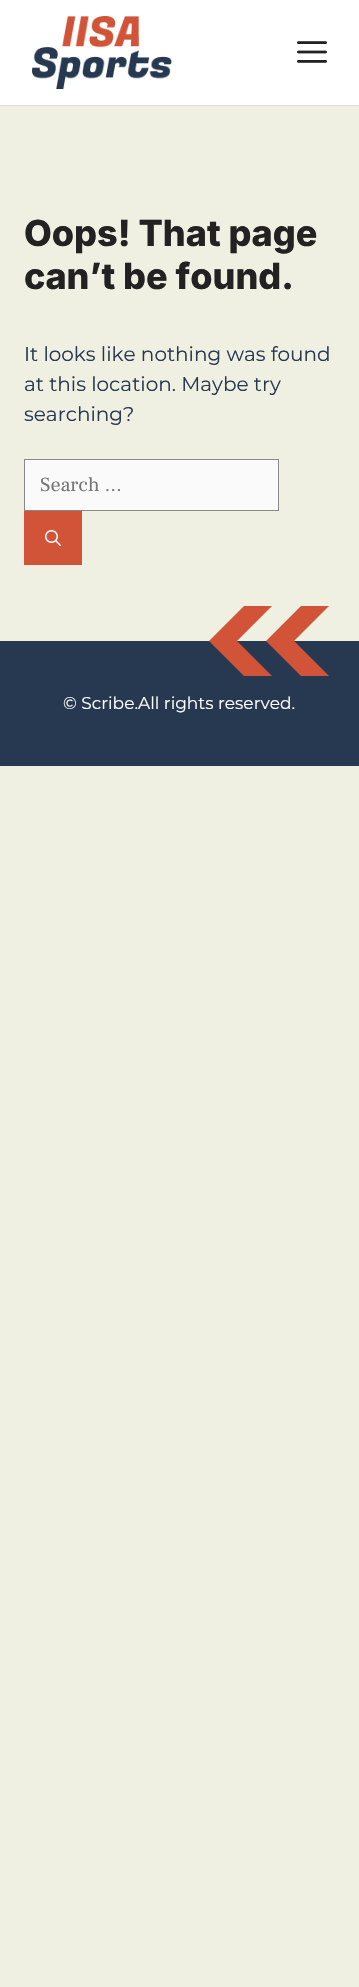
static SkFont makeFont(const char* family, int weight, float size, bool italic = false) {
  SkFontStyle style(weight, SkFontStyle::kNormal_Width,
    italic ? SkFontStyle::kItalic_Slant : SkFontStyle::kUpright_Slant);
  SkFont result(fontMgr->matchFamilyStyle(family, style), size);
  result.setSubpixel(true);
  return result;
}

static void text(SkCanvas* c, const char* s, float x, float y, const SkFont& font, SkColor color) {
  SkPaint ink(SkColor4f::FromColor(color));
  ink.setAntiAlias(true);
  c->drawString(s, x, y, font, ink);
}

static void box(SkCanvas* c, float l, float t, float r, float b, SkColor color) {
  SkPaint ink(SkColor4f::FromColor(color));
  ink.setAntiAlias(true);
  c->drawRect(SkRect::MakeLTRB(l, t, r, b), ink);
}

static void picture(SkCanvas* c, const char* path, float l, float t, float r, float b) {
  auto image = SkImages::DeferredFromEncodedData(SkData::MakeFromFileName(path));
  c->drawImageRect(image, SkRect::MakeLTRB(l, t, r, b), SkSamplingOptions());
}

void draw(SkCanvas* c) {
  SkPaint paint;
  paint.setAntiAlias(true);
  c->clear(0xffefefe2);
  box(c, 0, 0, 359, 105, 0xffffffff);
  box(c, 0, 105, 359, 106, 0xffdddddd);
  picture(c, "img_01.png", 32, 16, 172, 89);
  picture(c, "img_02.png", 297, 41, 327, 63);
  SkFont face1 = makeFont("Inter", 800, 36);
  text(c, "Oops! That page", 24, 246, face1, 0xff222222);
  text(c, "can’t be found.", 24, 289, face1, 0xff222222);
  SkFont face2 = makeFont("Montserrat", 400, 20);
  text(c, "It looks like nothing was found", 24, 361, face2, 0xff273950);
  text(c, "at this location. Maybe try", 24, 391, face2, 0xff273950);
  text(c, "searching?", 24, 421, face2, 0xff273950);
  paint.setColor(0xfffafafa);
  c->drawRect(SkRect::MakeLTRB(24.5f, 459.5f, 278.5f, 510.5f), paint);
  paint.setStyle(SkPaint::kStroke_Style);
  paint.setStrokeWidth(1);
  paint.setColor(0xff888888);
  c->drawRect(SkRect::MakeLTRB(24.5f, 459.5f, 278.5f, 510.5f), paint);
  SkFont face3 = makeFont("Frank Ruhl Libre", 400, 20);
  text(c, "Search …", 40, 491, face3, 0xff757575);
  box(c, 24, 511, 82, 565, 0xffd15438);
  picture(c, "img_03.png", 45, 530, 61, 546);
  box(c, 0, 641, 359, 766, 0xff273950);
  paint.setStyle(SkPaint::kFill_Style);
  paint.setColor(0xffd15438);
  c->drawPath(SkPathBuilder().moveTo(237, 641).lineTo(272, 606).lineTo(244, 606).lineTo(209, 641).lineTo(244, 676).lineTo(272, 676).close().detach(), paint);
  c->drawPath(SkPathBuilder().moveTo(294, 641).lineTo(329, 606).lineTo(301, 606).lineTo(266, 641).lineTo(301, 676).lineTo(329, 676).close().detach(), paint);
  SkFont face4 = makeFont("Montserrat", 400, 17);
  text(c, "© Scribe.All rights reserved.", 63, 709, face4, 0xffffffff);
}
